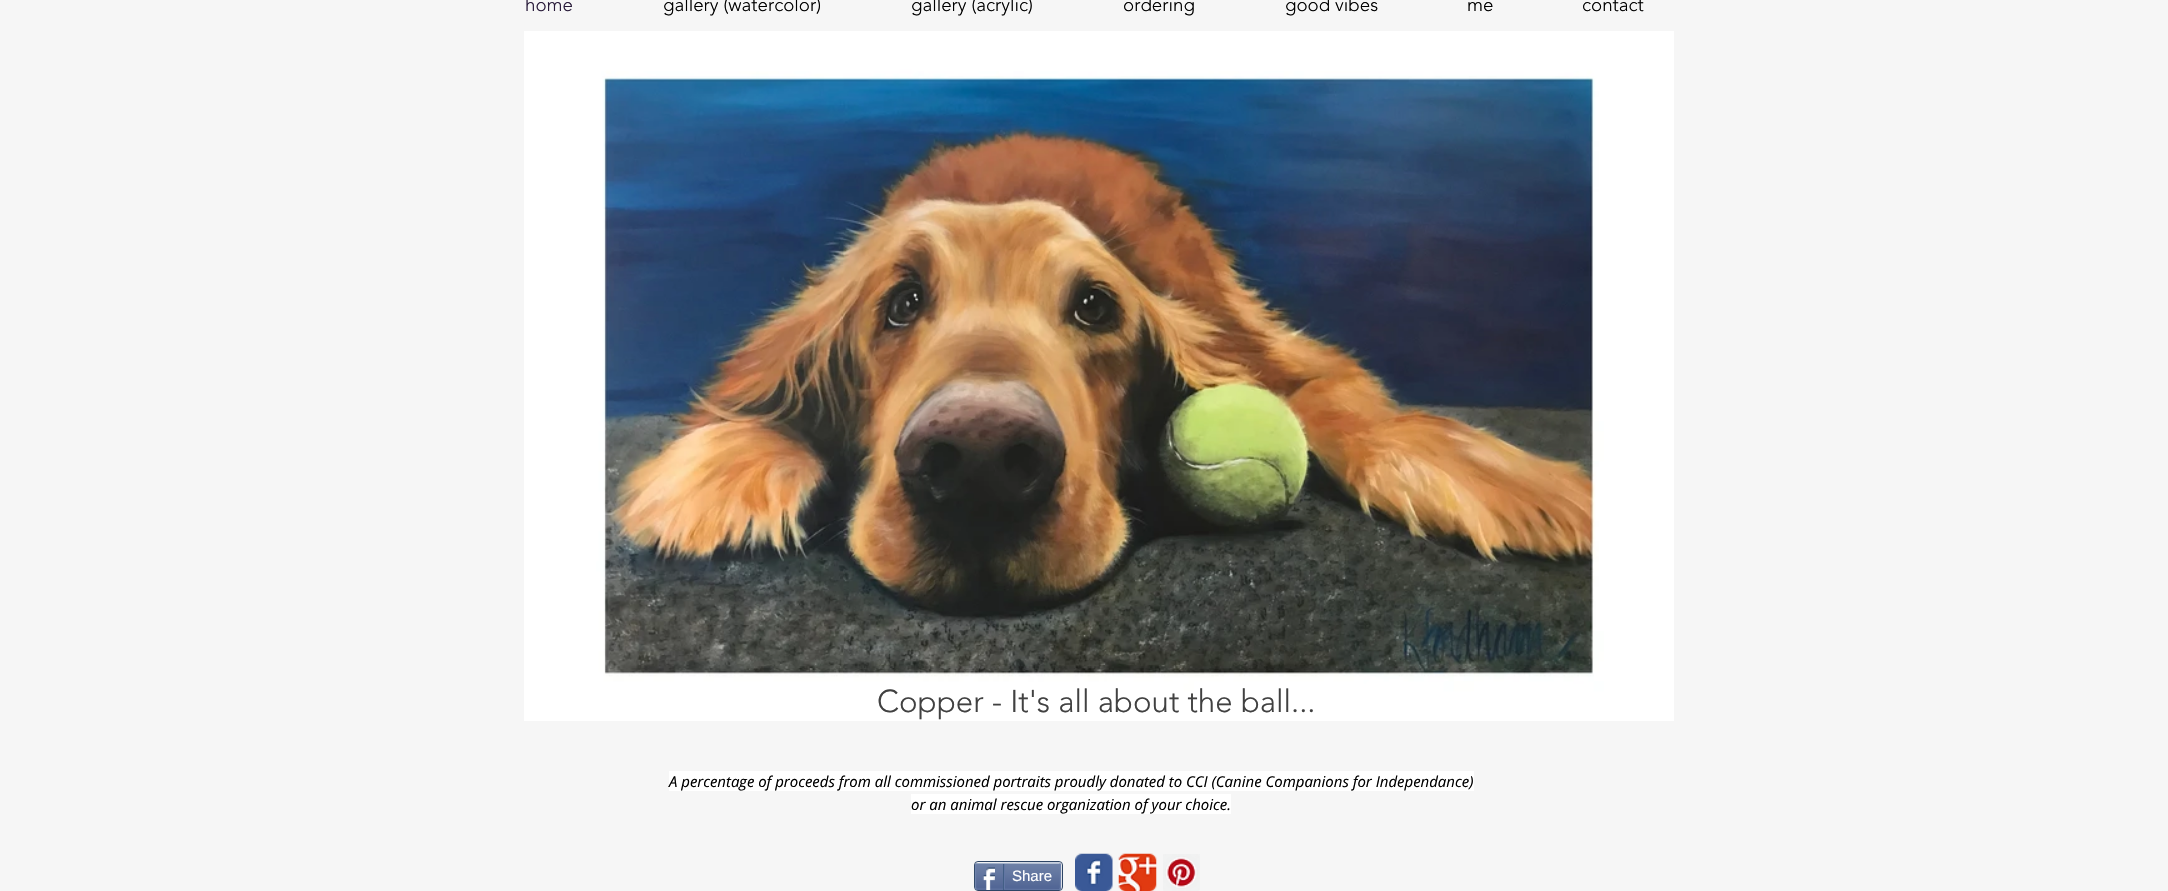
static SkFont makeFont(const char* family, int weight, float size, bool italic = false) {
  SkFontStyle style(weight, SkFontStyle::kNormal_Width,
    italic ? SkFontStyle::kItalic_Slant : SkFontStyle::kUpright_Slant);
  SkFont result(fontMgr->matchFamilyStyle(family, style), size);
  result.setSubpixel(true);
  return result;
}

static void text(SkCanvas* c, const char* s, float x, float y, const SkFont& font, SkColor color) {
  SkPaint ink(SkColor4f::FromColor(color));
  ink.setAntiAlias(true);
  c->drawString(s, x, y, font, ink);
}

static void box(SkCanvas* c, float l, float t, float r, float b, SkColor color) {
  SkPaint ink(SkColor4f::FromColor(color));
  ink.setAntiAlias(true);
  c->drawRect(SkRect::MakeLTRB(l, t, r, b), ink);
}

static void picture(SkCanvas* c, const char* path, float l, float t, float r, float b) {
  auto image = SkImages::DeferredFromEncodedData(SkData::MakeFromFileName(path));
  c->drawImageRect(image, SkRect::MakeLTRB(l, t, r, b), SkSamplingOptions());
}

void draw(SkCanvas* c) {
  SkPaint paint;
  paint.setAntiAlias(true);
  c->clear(0xfff6f6f6);
  SkFont face1 = makeFont("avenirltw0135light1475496", 300, 18.75f);
  text(c, "home", 525, 11, face1, 0xff281a39);
  text(c, "gallery (watercolor)", 663, 11, face1, 0xff000000);
  text(c, "gallery (acrylic)", 911, 11, face1, 0xff000000);
  text(c, "ordering", 1123, 11, face1, 0xff000000);
  text(c, "good vibes", 1285, 11, face1, 0xff000000);
  text(c, "me", 1467, 11, face1, 0xff000000);
  text(c, "contact", 1582, 11, face1, 0xff000000);
  picture(c, "img_01.png", 524, 31, 1674, 721);
  SkFont face2 = makeFont("avenirltw0135light1475496", 300, 31.25f);
  text(c, "Copper - It's all about the ball...", 877, 712, face2, 0xff414141);
  box(c, 669, 771, 1474, 791, 0xffffffff);
  SkFont face3 = makeFont("Open Sans", 400, 15, true);
  text(c, "A percentage of proceeds from all commissioned portraits proudly donated to CCI (Canine Companions for Independance)", 669, 787, face3, 0xff000000);
  box(c, 911, 794, 1231, 814, 0xffffffff);
  text(c, "or an animal rescue organization of your choice.", 911, 810, face3, 0xff000000);
  paint.setStyle(SkPaint::kStroke_Style);
  paint.setStrokeWidth(1);
  paint.setColor(0xff2d4565);
  c->drawRoundRect(SkRect::MakeLTRB(974.5f, 861.5f, 1062.5f, 890.5f), 3.5f, 3.5f, paint);
  picture(c, "img_02.png", 975, 863, 1062, 890);
  paint.setStrokeWidth(1.2f);
  paint.setColor(0xff9aabc6);
  c->drawPath(SkPathBuilder().moveTo(976, 863.5f).lineTo(1045, 863).lineTo(1059, 863).lineTo(1060, 863.5f).detach(), paint);
  paint.setColor(0xff6f83ad);
  c->drawPath(SkPathBuilder().moveTo(1060, 863.5f).lineTo(1060.5f, 865).lineTo(1060.5f, 887.5f).lineTo(1060, 889).detach(), paint);
  paint.setColor(0xff6176a3);
  c->drawPath(SkPathBuilder().moveTo(1060, 889).lineTo(1059, 889.5f).lineTo(976, 889).detach(), paint);
  paint.setColor(0xff6f83ad);
  c->drawPath(SkPathBuilder().moveTo(976, 889).lineTo(975.5f, 887.5f).lineTo(975.5f, 865).lineTo(976, 863.5f).detach(), paint);
  picture(c, "img_03.png", 982, 867, 995, 890);
  box(c, 1003, 864, 1004, 890, 0xff425e85);
  SkFont face4 = makeFont("Liberation Sans", 400, 15);
  text(c, "Share", 1012, 881, face4, 0xffffffff);
  box(c, 1004, 864, 1005, 889, 0xff6176a3);
  picture(c, "img_04.png", 1075, 853, 1113, 891);
  picture(c, "img_05.png", 1118, 853, 1157, 891);
  picture(c, "img_06.png", 1163, 854, 1200, 891);
}
